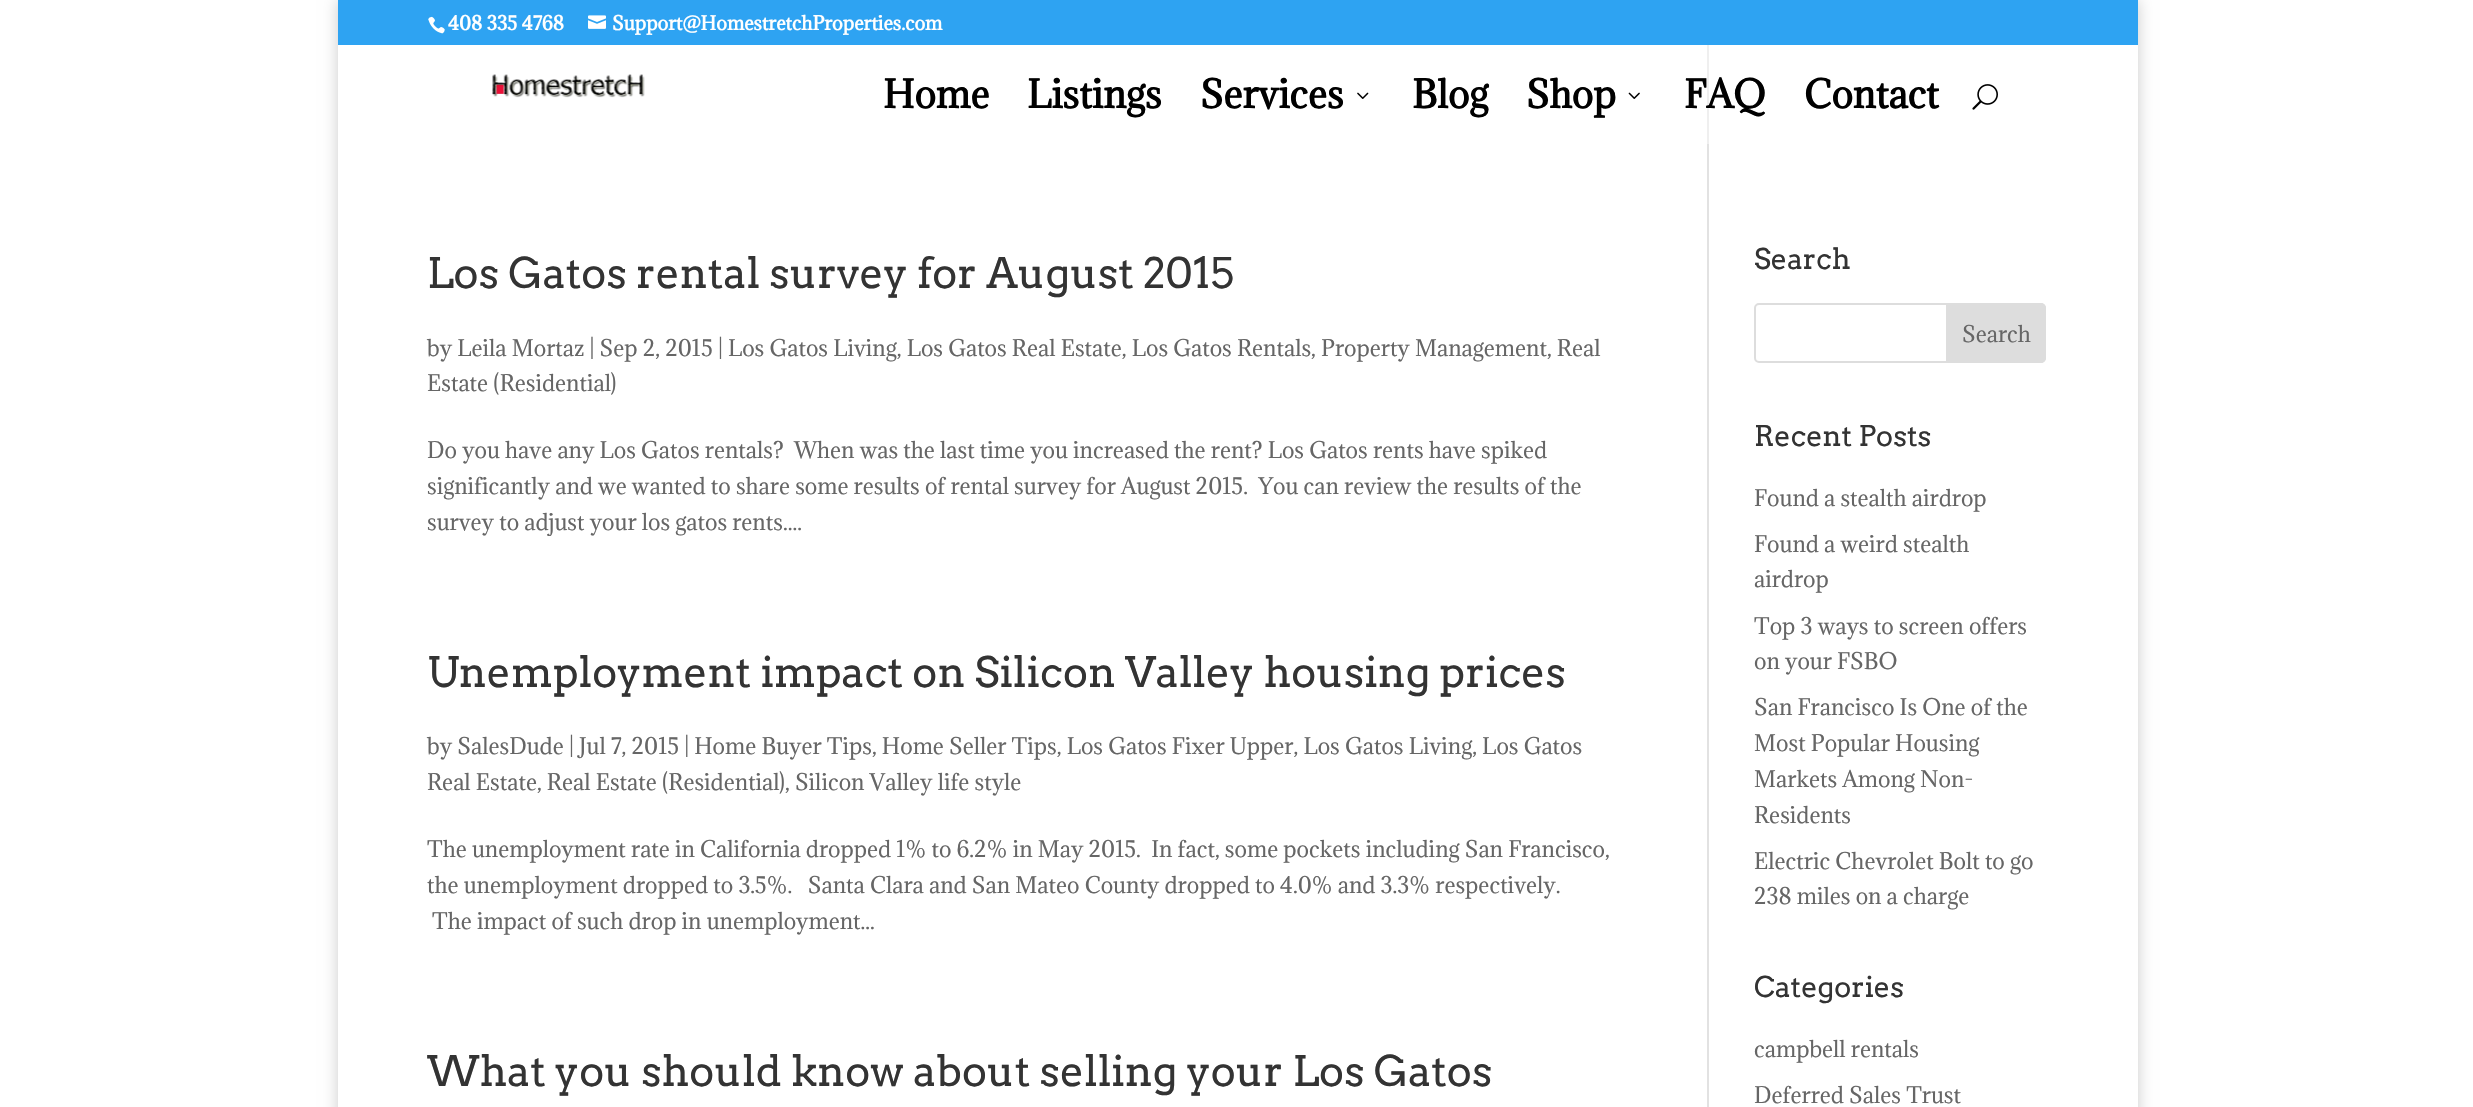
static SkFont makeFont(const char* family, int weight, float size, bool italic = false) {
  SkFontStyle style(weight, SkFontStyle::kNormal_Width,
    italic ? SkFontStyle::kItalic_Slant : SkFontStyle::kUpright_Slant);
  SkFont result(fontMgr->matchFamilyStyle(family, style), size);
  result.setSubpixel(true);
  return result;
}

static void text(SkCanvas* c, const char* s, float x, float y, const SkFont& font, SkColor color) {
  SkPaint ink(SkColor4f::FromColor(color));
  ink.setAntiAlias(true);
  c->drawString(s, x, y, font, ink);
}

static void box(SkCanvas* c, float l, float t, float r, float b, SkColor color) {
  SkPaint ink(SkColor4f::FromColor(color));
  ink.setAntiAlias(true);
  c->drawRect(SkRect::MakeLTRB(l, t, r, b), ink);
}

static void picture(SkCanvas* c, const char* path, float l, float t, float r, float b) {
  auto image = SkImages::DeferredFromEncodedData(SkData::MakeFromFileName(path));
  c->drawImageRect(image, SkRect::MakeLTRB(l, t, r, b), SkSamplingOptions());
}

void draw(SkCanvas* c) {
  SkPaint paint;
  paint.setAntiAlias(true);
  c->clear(0xffffffff);
  paint.setColor(0x33000000);
  paint.setMaskFilter(SkMaskFilter::MakeBlur(kNormal_SkBlurStyle, 7.5f));
  c->drawRect(SkRect::MakeLTRB(338, 0, 2138, 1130), paint);
  paint.setMaskFilter(nullptr);
  box(c, 338, 0, 2138, 45, 0xff2ea3f2);
  picture(c, "img_01.png", 428, 16, 445, 34);
  SkFont face1 = makeFont("Adamina", 700, 18);
  text(c, "408 335 4768", 448, 30, face1, 0xffffffff);
  picture(c, "img_02.png", 588, 15, 606, 29);
  text(c, "Support@HomestretchProperties.com", 612, 30, face1, 0xffffffff);
  box(c, 338, 45, 2138, 1107, 0xffffffff);
  box(c, 1707, 45, 1709, 1107, 0xffe2e2e2);
  box(c, 1707, 45, 1709, 144, 0x70ffffff);
  picture(c, "img_03.png", 492, 74, 645, 98);
  SkFont face2 = makeFont("Adamina", 700, 36);
  text(c, "Home", 883, 108, face2, 0xff000000);
  text(c, "Listings", 1027, 108, face2, 0xff000000);
  text(c, "Services", 1200, 108, face2, 0xff000000);
  picture(c, "img_04.png", 1357, 92, 1369, 99);
  text(c, "Blog", 1412, 108, face2, 0xff000000);
  text(c, "Shop", 1526, 108, face2, 0xff000000);
  picture(c, "img_05.png", 1628, 92, 1640, 99);
  text(c, "FAQ", 1684, 108, face2, 0xff000000);
  text(c, "Contact", 1804, 108, face2, 0xff000000);
  picture(c, "img_06.png", 1972, 84, 1998, 110);
  SkFont face3 = makeFont("Arvo", 400, 42);
  text(c, "Los Gatos rental survey for August 2015", 427, 288, face3, 0xff333333);
  SkFont face4 = makeFont("Adamina", 400, 21);
  text(c, "by Leila Mortaz | Sep 2, 2015 | Los Gatos Living, Los Gatos Real Estate, Los Gatos Rentals, Property Management, Real", 427, 356, face4, 0xff666666);
  text(c, "Estate (Residential)", 427, 391, face4, 0xff666666);
  text(c, "Do you have any Los Gatos rentals?  When was the last time you increased the rent? Los Gatos rents have spiked", 427, 458, face4, 0xff666666);
  text(c, "significantly and we wanted to share some results of rental survey for August 2015.  You can review the results of the", 427, 494, face4, 0xff666666);
  text(c, "survey to adjust your los gatos rents....", 427, 530, face4, 0xff666666);
  text(c, "Unemployment impact on Silicon Valley housing prices", 427, 687, face3, 0xff333333);
  text(c, "by SalesDude | Jul 7, 2015 | Home Buyer Tips, Home Seller Tips, Los Gatos Fixer Upper, Los Gatos Living, Los Gatos", 427, 754, face4, 0xff666666);
  text(c, "Real Estate, Real Estate (Residential), Silicon Valley life style", 427, 790, face4, 0xff666666);
  text(c, "The unemployment rate in California dropped 1% to 6.2% in May 2015.  In fact, some pockets including San Francisco,", 427, 857, face4, 0xff666666);
  text(c, "the unemployment dropped to 3.5%.   Santa Clara and San Mateo County dropped to 4.0% and 3.3% respectively.", 427, 893, face4, 0xff666666);
  text(c, "The impact of such drop in unemployment...", 432, 929, face4, 0xff666666);
  text(c, "What you should know about selling your Los Gatos", 427, 1086, face3, 0xff333333);
  SkFont face5 = makeFont("Arvo", 400, 28.5f);
  text(c, "Search", 1754, 269, face5, 0xff333333);
  paint.setStyle(SkPaint::kStroke_Style);
  paint.setStrokeWidth(2);
  paint.setColor(0xffdddddd);
  c->drawRoundRect(SkRect::MakeLTRB(1755, 304, 2045, 362), 4, 4, paint);
  paint.setStyle(SkPaint::kFill_Style);
  c->drawPath(SkPathBuilder().moveTo(1947, 304).lineTo(2041, 304).cubicTo(2043, 304, 2045, 306, 2045, 308).lineTo(2045, 358).cubicTo(2045, 360, 2043, 362, 2041, 362).lineTo(1947, 362).close().detach(), paint);
  paint.setStyle(SkPaint::kStroke_Style);
  c->drawPath(SkPathBuilder().moveTo(1947, 304).lineTo(2041, 304).cubicTo(2043, 304, 2045, 306, 2045, 308).lineTo(2045, 358).cubicTo(2045, 360, 2043, 362, 2041, 362).lineTo(1947, 362).close().detach(), paint);
  text(c, "Search", 1962, 342, face4, 0xff666666);
  text(c, "Recent Posts", 1754, 446, face5, 0xff333333);
  text(c, "Found a stealth airdrop", 1754, 506, face4, 0xff666666);
  text(c, "Found a weird stealth", 1754, 552, face4, 0xff666666);
  text(c, "airdrop", 1754, 587, face4, 0xff666666);
  text(c, "Top 3 ways to screen offers", 1754, 634, face4, 0xff666666);
  text(c, "on your FSBO", 1754, 669, face4, 0xff666666);
  text(c, "San Francisco Is One of the", 1754, 715, face4, 0xff666666);
  text(c, "Most Popular Housing", 1754, 751, face4, 0xff666666);
  text(c, "Markets Among Non-", 1754, 787, face4, 0xff666666);
  text(c, "Residents", 1754, 823, face4, 0xff666666);
  text(c, "Electric Chevrolet Bolt to go", 1754, 869, face4, 0xff666666);
  text(c, "238 miles on a charge", 1754, 904, face4, 0xff666666);
  text(c, "Categories", 1754, 997, face5, 0xff333333);
  text(c, "campbell rentals", 1754, 1057, face4, 0xff666666);
  text(c, "Deferred Sales Trust", 1754, 1103, face4, 0xff666666);
}
